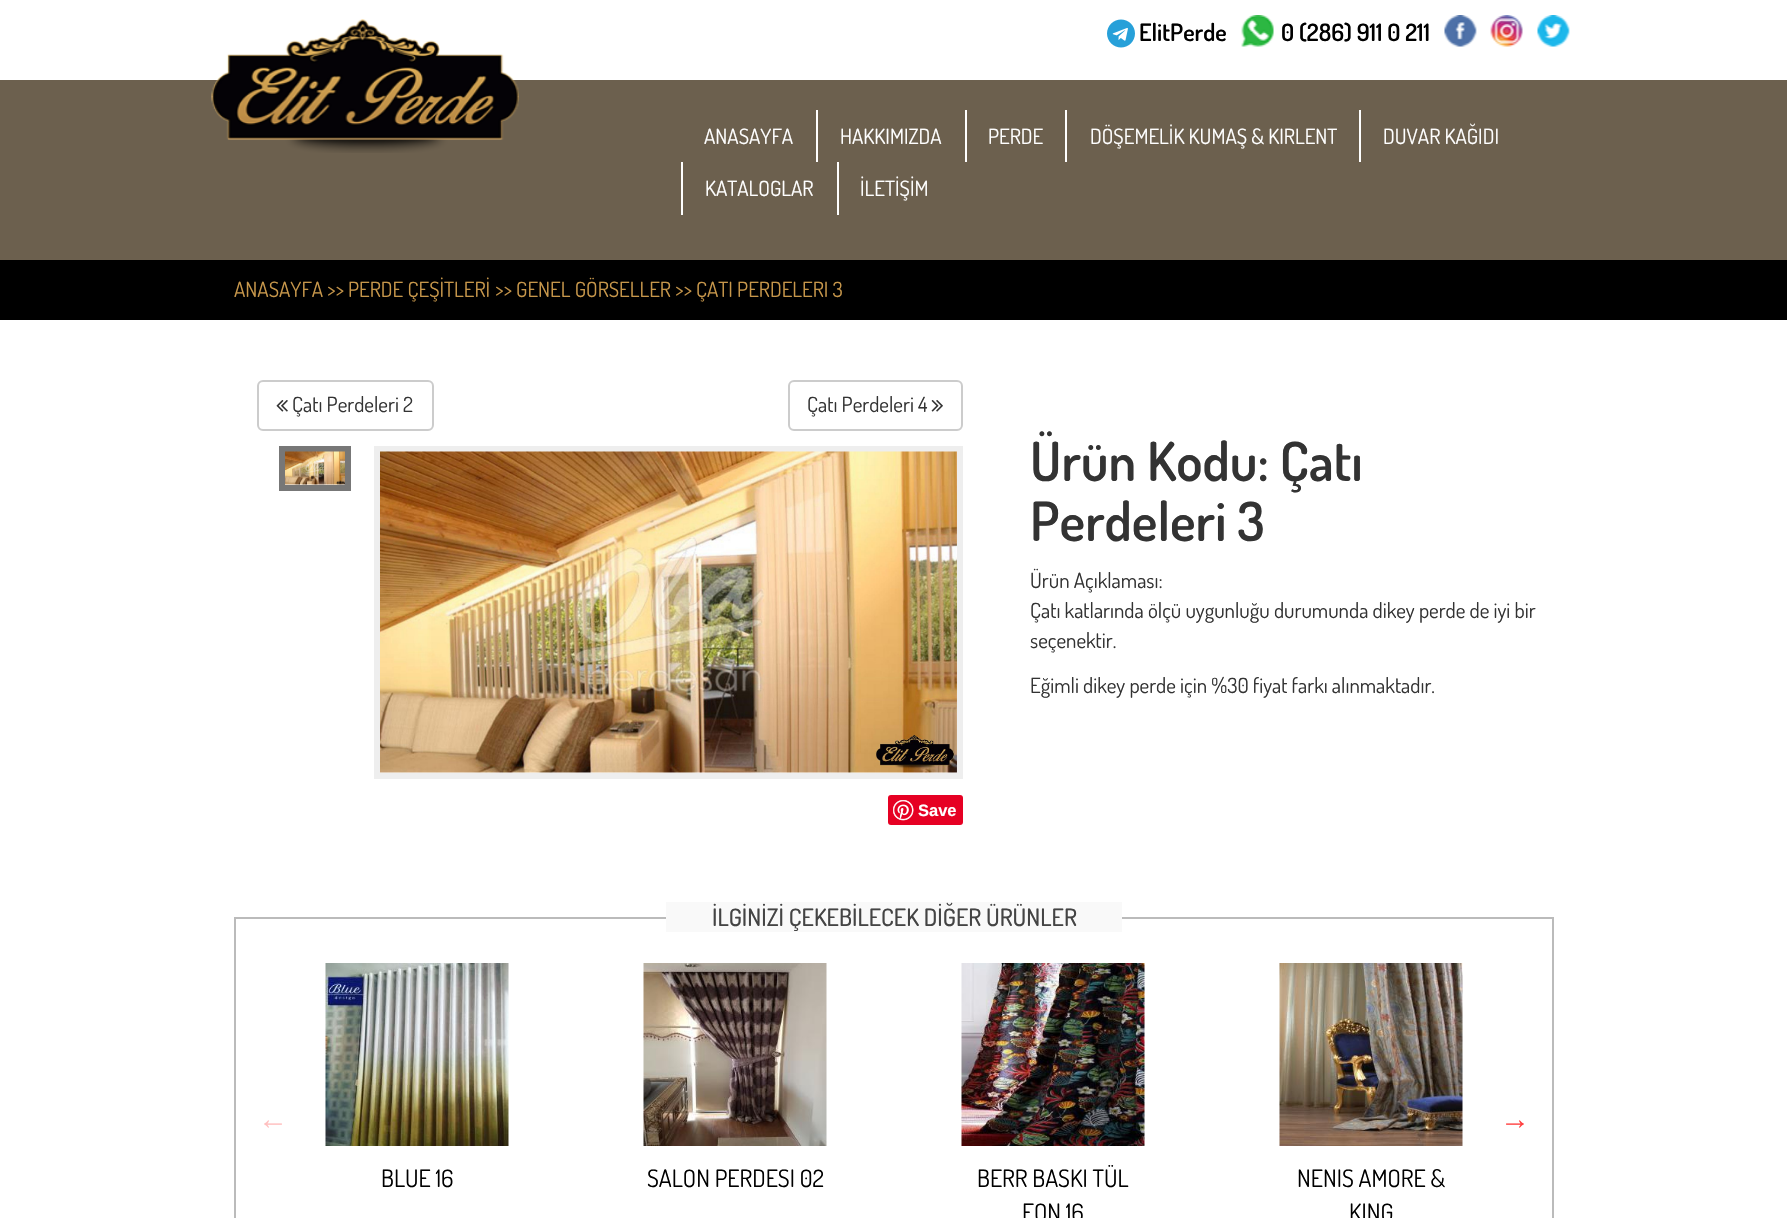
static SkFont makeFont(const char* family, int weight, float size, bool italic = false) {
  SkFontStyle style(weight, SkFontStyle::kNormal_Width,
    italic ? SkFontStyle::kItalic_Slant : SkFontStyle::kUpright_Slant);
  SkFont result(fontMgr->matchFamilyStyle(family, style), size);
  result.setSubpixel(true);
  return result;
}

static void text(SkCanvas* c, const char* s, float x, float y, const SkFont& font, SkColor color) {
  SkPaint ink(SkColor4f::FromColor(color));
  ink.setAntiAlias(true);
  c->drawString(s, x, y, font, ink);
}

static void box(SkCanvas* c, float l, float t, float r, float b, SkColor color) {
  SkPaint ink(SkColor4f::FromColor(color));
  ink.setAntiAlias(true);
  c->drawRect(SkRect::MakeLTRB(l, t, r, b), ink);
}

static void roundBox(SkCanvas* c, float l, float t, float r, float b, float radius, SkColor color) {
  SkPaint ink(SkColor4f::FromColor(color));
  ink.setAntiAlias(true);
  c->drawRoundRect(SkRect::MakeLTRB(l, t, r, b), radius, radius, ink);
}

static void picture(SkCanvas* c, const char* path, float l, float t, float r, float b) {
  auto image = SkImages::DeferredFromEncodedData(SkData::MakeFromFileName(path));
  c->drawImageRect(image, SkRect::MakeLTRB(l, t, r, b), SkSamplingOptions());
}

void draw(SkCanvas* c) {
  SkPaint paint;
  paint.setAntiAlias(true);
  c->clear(0xffffffff);
  picture(c, "img_01.png", 1107, 19, 1135, 48);
  SkFont face1 = makeFont("Dosis", 600, 24);
  text(c, "ElitPerde", 1139, 41, face1, 0xff000000);
  picture(c, "img_02.png", 1241, 15, 1274, 47);
  text(c, "0 (286) 911 0 211", 1281, 41, face1, 0xff000000);
  picture(c, "img_03.png", 1444, 15, 1477, 47);
  picture(c, "img_04.png", 1490, 15, 1523, 47);
  picture(c, "img_05.png", 1537, 15, 1570, 47);
  box(c, 0, 80, 1787, 260, 0xff6c604e);
  picture(c, "img_06.png", 211, 19, 519, 153);
  SkFont face2 = makeFont("Dosis", 400, 21);
  text(c, "ANASAYFA", 704, 144, face2, 0xffffffff);
  box(c, 816, 110, 818, 162, 0xffffffff);
  text(c, "HAKKIMIZDA", 840, 144, face2, 0xffffffff);
  box(c, 965, 110, 967, 162, 0xffffffff);
  text(c, "PERDE", 988, 144, face2, 0xffffffff);
  box(c, 1065, 110, 1067, 162, 0xffffffff);
  text(c, "DÖŞEMELİK KUMAŞ & KIRLENT", 1090, 144, face2, 0xffffffff);
  box(c, 1359, 110, 1361, 162, 0xffffffff);
  text(c, "DUVAR KAĞIDI", 1383, 144, face2, 0xffffffff);
  box(c, 681, 162, 683, 215, 0xffffffff);
  text(c, "KATALOGLAR", 705, 196, face2, 0xffffffff);
  box(c, 837, 162, 839, 215, 0xffffffff);
  text(c, "İLETİŞİM", 860, 196, face2, 0xffffffff);
  box(c, 0, 260, 1787, 320, 0xff000000);
  text(c, "ANASAYFA", 234, 297, face2, 0xffc7974b);
  text(c, ">>", 327, 297, face2, 0xffc19248);
  text(c, "PERDE ÇEŞİTLERİ", 348, 297, face2, 0xffc7974b);
  text(c, ">>", 495, 297, face2, 0xffc19248);
  text(c, "GENEL GÖRSELLER", 516, 297, face2, 0xffc7974b);
  text(c, ">>", 675, 297, face2, 0xffc19248);
  text(c, "ÇATI PERDELERI 3", 696, 297, face2, 0xffc7974b);
  paint.setStyle(SkPaint::kStroke_Style);
  paint.setStrokeWidth(2);
  paint.setColor(0xffcccccc);
  c->drawRoundRect(SkRect::MakeLTRB(258, 381, 433, 430), 5, 5, paint);
  picture(c, "img_07.png", 276, 400, 288, 412);
  text(c, "Çatı Perdeleri 2", 292, 412, face2, 0xff333333);
  c->drawRoundRect(SkRect::MakeLTRB(789, 381, 962, 430), 5, 5, paint);
  text(c, "Çatı Perdeleri 4", 807, 412, face2, 0xff333333);
  picture(c, "img_08.png", 931, 400, 943, 412);
  paint.setStrokeWidth(6);
  paint.setColor(0xff777777);
  c->drawRect(SkRect::MakeLTRB(282, 449, 348, 488), paint);
  picture(c, "img_09.png", 285, 451, 345, 485);
  paint.setColor(0xffeeeeee);
  c->drawRect(SkRect::MakeLTRB(377, 449, 960, 776), paint);
  picture(c, "img_10.png", 380, 451, 957, 773);
  roundBox(c, 888, 795, 963, 825, 3, 0xffe60023);
  picture(c, "img_11.png", 893, 800, 914, 821);
  SkFont face3 = makeFont("Liberation Sans", 700, 16.5f);
  text(c, "Save", 918, 816, face3, 0xffffffff);
  SkFont face4 = makeFont("Dosis", 600, 54);
  text(c, "Ürün Kodu: Çatı", 1030, 481, face4, 0xff333333);
  text(c, "Perdeleri 3", 1030, 541, face4, 0xff333333);
  text(c, "Ürün Açıklaması:", 1030, 588, face2, 0xff333333);
  text(c, "Çatı katlarında ölçü uygunluğu durumunda dikey perde de iyi bir", 1030, 618, face2, 0xff333333);
  text(c, "seçenektir.", 1030, 648, face2, 0xff333333);
  text(c, "Eğimli dikey perde için %30 fiyat farkı alınmaktadır.", 1030, 693, face2, 0xff333333);
  paint.setStrokeWidth(2);
  paint.setColor(0xffbbbbbb);
  c->drawRect(SkRect::MakeLTRB(235, 918, 1553, 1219), paint);
  box(c, 666, 902, 1122, 932, 0xfff9f9f9);
  SkFont face5 = makeFont("Dosis", 500, 24);
  text(c, "İLGİNİZİ ÇEKEBİLECEK DİĞER ÜRÜNLER", 712, 926, face5, 0xff444444);
  SkFont face6 = makeFont("Liberation Serif", 400, 30);
  text(c, "←", 258, 1129, face6, 0xffffbfbf);
  text(c, "→", 1500, 1129, face6, 0xffff4040);
  picture(c, "img_12.png", 325, 963, 509, 1146);
  SkFont face7 = makeFont("Dosis", 400, 24);
  text(c, "BLUE 16", 381, 1187, face7, 0xff000000);
  picture(c, "img_13.png", 643, 963, 827, 1146);
  text(c, "SALON PERDESI 02", 647, 1187, face7, 0xff000000);
  picture(c, "img_14.png", 961, 963, 1145, 1146);
  text(c, "BERR BASKI TÜL", 977, 1187, face7, 0xff000000);
  text(c, "FON 16", 1022, 1221, face7, 0xff000000);
  picture(c, "img_15.png", 1279, 963, 1463, 1146);
  text(c, "NENIS AMORE &", 1297, 1187, face7, 0xff000000);
  text(c, "KING", 1349, 1221, face7, 0xff000000);
}
